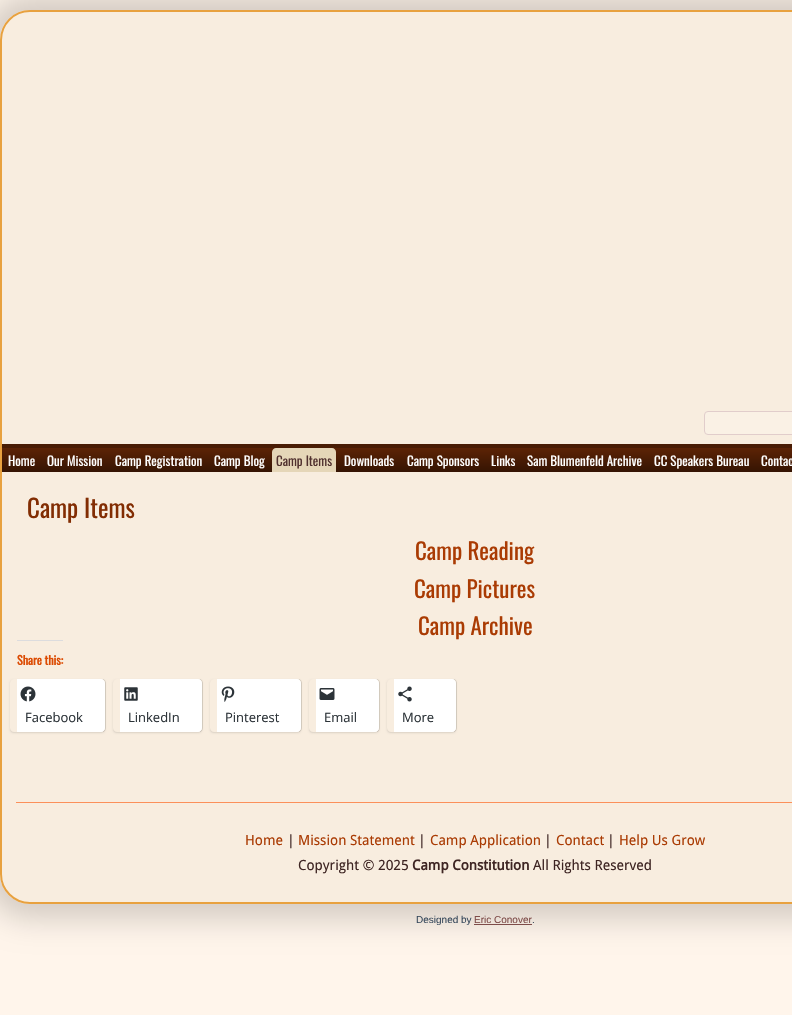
static SkFont makeFont(const char* family, int weight, float size, bool italic = false) {
  SkFontStyle style(weight, SkFontStyle::kNormal_Width,
    italic ? SkFontStyle::kItalic_Slant : SkFontStyle::kUpright_Slant);
  SkFont result(fontMgr->matchFamilyStyle(family, style), size);
  result.setSubpixel(true);
  return result;
}

static void text(SkCanvas* c, const char* s, float x, float y, const SkFont& font, SkColor color) {
  SkPaint ink(SkColor4f::FromColor(color));
  ink.setAntiAlias(true);
  c->drawString(s, x, y, font, ink);
}

static void box(SkCanvas* c, float l, float t, float r, float b, SkColor color) {
  SkPaint ink(SkColor4f::FromColor(color));
  ink.setAntiAlias(true);
  c->drawRect(SkRect::MakeLTRB(l, t, r, b), ink);
}

static void roundBox(SkCanvas* c, float l, float t, float r, float b, float radius, SkColor color) {
  SkPaint ink(SkColor4f::FromColor(color));
  ink.setAntiAlias(true);
  c->drawRoundRect(SkRect::MakeLTRB(l, t, r, b), radius, radius, ink);
}

static void picture(SkCanvas* c, const char* path, float l, float t, float r, float b) {
  auto image = SkImages::DeferredFromEncodedData(SkData::MakeFromFileName(path));
  c->drawImageRect(image, SkRect::MakeLTRB(l, t, r, b), SkSamplingOptions());
}

void draw(SkCanvas* c) {
  SkPaint paint;
  paint.setAntiAlias(true);
  c->clear(0xfffff5eb);
  c->save();
  c->clipPath(SkPathBuilder(SkPathFillType::kEvenOdd).moveTo(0, 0).lineTo(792, 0).lineTo(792, 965).lineTo(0, 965).close().moveTo(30, 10).lineTo(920, 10).cubicTo(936.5f, 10, 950, 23.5f, 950, 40).lineTo(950, 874).cubicTo(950, 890.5f, 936.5f, 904, 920, 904).lineTo(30, 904).cubicTo(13.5f, 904, 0, 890.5f, 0, 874).lineTo(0, 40).cubicTo(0, 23.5f, 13.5f, 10, 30, 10).close().detach(), true);
  paint.setColor(0x2b000000);
  paint.setMaskFilter(SkMaskFilter::MakeBlur(kNormal_SkBlurStyle, 15));
  c->drawRoundRect(SkRect::MakeLTRB(-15, -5, 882, 919), 45, 45, paint);
  paint.setMaskFilter(nullptr);
  c->restore();
  roundBox(c, 0, 10, 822, 904, 30, 0x57eadfc7);
  paint.setStyle(SkPaint::kStroke_Style);
  paint.setStrokeWidth(2);
  paint.setColor(0xd1e4901b);
  c->drawRoundRect(SkRect::MakeLTRB(1, 11, 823, 903), 29, 29, paint);
  paint.setStyle(SkPaint::kFill_Style);
  paint.setColor(0xfffaf1e5);
  c->drawRoundRect(SkRect::MakeLTRB(704.5f, 411.5f, 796.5f, 434.5f), 3.5f, 3.5f, paint);
  paint.setStyle(SkPaint::kStroke_Style);
  paint.setStrokeWidth(1);
  paint.setColor(0xffe1cdcb);
  c->drawRoundRect(SkRect::MakeLTRB(704.5f, 411.5f, 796.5f, 434.5f), 3.5f, 3.5f, paint);
  paint.setStyle(SkPaint::kFill_Style);
  {
    const SkColor colors[] = {0xff491c04, 0xff491c04, 0xff5c2305, 0xff351403};
    const float stops[] = {0, 0.14f, 0.15f, 1};
    const SkPoint ends[] = {{475, 444}, {475, 472}};
    paint.setShader(SkGradientShader::MakeLinear(ends, colors, stops, 4, SkTileMode::kClamp));
    paint.setAlpha(255);
  }
  c->drawRect(SkRect::MakeLTRB(2, 444, 792, 472), paint);
  SkFont face1 = makeFont("Oswald", 400, 13);
  text(c, "Home", 8, 466, face1, 0xffffffff);
  text(c, "Our Mission", 47, 466, face1, 0xffffffff);
  text(c, "Camp Registration", 115, 466, face1, 0xffffffff);
  text(c, "Camp Blog", 214, 466, face1, 0xffffffff);
  paint.setShader(nullptr);
  paint.setColor(0xffe5d6b8);
  c->drawPath(SkPathBuilder().moveTo(276, 448).lineTo(332, 448).cubicTo(334, 448, 336, 450, 336, 452).lineTo(336, 472).lineTo(272, 472).lineTo(272, 452).cubicTo(272, 450, 274, 448, 276, 448).close().detach(), paint);
  text(c, "Camp Items", 276, 466, face1, 0xff51312f);
  text(c, "Downloads", 344, 466, face1, 0xffffffff);
  text(c, "Camp Sponsors", 407, 466, face1, 0xffffffff);
  text(c, "Links", 491, 466, face1, 0xffffffff);
  text(c, "Sam Blumenfeld Archive", 527, 466, face1, 0xffffffff);
  text(c, "CC Speakers Bureau", 654, 466, face1, 0xffffffff);
  text(c, "Contac", 761, 466, face1, 0xffffffff);
  SkFont face2 = makeFont("Oswald", 400, 25);
  text(c, "Camp Items", 27, 518, face2, 0xff822d03);
  SkFont face3 = makeFont("Oswald", 400, 23);
  text(c, "Camp Reading", 415, 560, face3, 0xffaa3b03);
  text(c, "Camp Pictures", 414, 598, face3, 0xffaa3b03);
  text(c, "Camp Archive", 418, 635, face3, 0xffaa3b03);
  box(c, 17, 640, 63, 641, 0xffdcdcde);
  SkFont face4 = makeFont("Oswald", 700, 12);
  text(c, "Share this:", 17, 665, face4, 0xffdc4c04);
  c->save();
  c->clipRect(SkRect::MakeLTRB(17, 679, 112, 732));
  paint.setStyle(SkPaint::kStroke_Style);
  paint.setColor(0xffdad1c4);
  c->drawRoundRect(SkRect::MakeLTRB(9.5f, 678.5f, 105.5f, 732.5f), 4.5f, 4.5f, paint);
  c->restore();
  c->save();
  c->clipPath(SkPathBuilder(SkPathFillType::kEvenOdd).moveTo(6, 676).lineTo(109, 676).lineTo(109, 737).lineTo(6, 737).close().moveTo(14, 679).lineTo(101, 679).cubicTo(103, 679, 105, 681, 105, 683).lineTo(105, 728).cubicTo(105, 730, 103, 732, 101, 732).lineTo(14, 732).cubicTo(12, 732, 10, 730, 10, 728).lineTo(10, 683).cubicTo(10, 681, 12, 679, 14, 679).close().detach(), true);
  paint.setStyle(SkPaint::kFill_Style);
  paint.setColor(0x1f000000);
  paint.setMaskFilter(SkMaskFilter::MakeBlur(kNormal_SkBlurStyle, 1));
  c->drawRoundRect(SkRect::MakeLTRB(10, 680, 105, 733), 4, 4, paint);
  paint.setMaskFilter(nullptr);
  c->restore();
  paint.setColor(0xffffffff);
  c->drawPath(SkPathBuilder().moveTo(17, 679).lineTo(101, 679).cubicTo(103, 679, 105, 681, 105, 683).lineTo(105, 728).cubicTo(105, 730, 103, 732, 101, 732).lineTo(17, 732).close().detach(), paint);
  picture(c, "img_01.png", 20, 686, 36, 702);
  SkFont face5 = makeFont("Open Sans", 400, 13);
  text(c, "Facebook", 25, 722, face5, 0xff2c3338);
  c->save();
  c->clipRect(SkRect::MakeLTRB(120, 679, 209, 732));
  paint.setStyle(SkPaint::kStroke_Style);
  paint.setColor(0xffdad1c4);
  c->drawRoundRect(SkRect::MakeLTRB(112.5f, 678.5f, 202.5f, 732.5f), 4.5f, 4.5f, paint);
  c->restore();
  c->save();
  c->clipPath(SkPathBuilder(SkPathFillType::kEvenOdd).moveTo(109, 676).lineTo(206, 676).lineTo(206, 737).lineTo(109, 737).close().moveTo(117, 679).lineTo(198, 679).cubicTo(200, 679, 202, 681, 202, 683).lineTo(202, 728).cubicTo(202, 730, 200, 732, 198, 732).lineTo(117, 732).cubicTo(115, 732, 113, 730, 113, 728).lineTo(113, 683).cubicTo(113, 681, 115, 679, 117, 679).close().detach(), true);
  paint.setStyle(SkPaint::kFill_Style);
  paint.setColor(0x1f000000);
  paint.setMaskFilter(SkMaskFilter::MakeBlur(kNormal_SkBlurStyle, 1));
  c->drawRoundRect(SkRect::MakeLTRB(113, 680, 202, 733), 4, 4, paint);
  paint.setMaskFilter(nullptr);
  c->restore();
  paint.setColor(0xffffffff);
  c->drawPath(SkPathBuilder().moveTo(120, 679).lineTo(198, 679).cubicTo(200, 679, 202, 681, 202, 683).lineTo(202, 728).cubicTo(202, 730, 200, 732, 198, 732).lineTo(120, 732).close().detach(), paint);
  picture(c, "img_02.png", 124, 687, 138, 701);
  text(c, "LinkedIn", 128, 722, face5, 0xff2c3338);
  c->save();
  c->clipRect(SkRect::MakeLTRB(217, 679, 308, 732));
  paint.setStyle(SkPaint::kStroke_Style);
  paint.setColor(0xffdad1c4);
  c->drawRoundRect(SkRect::MakeLTRB(209.5f, 678.5f, 301.5f, 732.5f), 4.5f, 4.5f, paint);
  c->restore();
  c->save();
  c->clipPath(SkPathBuilder(SkPathFillType::kEvenOdd).moveTo(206, 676).lineTo(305, 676).lineTo(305, 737).lineTo(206, 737).close().moveTo(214, 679).lineTo(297, 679).cubicTo(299, 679, 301, 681, 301, 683).lineTo(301, 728).cubicTo(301, 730, 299, 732, 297, 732).lineTo(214, 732).cubicTo(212, 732, 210, 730, 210, 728).lineTo(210, 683).cubicTo(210, 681, 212, 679, 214, 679).close().detach(), true);
  paint.setStyle(SkPaint::kFill_Style);
  paint.setColor(0x1f000000);
  paint.setMaskFilter(SkMaskFilter::MakeBlur(kNormal_SkBlurStyle, 1));
  c->drawRoundRect(SkRect::MakeLTRB(210, 680, 301, 733), 4, 4, paint);
  paint.setMaskFilter(nullptr);
  c->restore();
  paint.setColor(0xffffffff);
  c->drawPath(SkPathBuilder().moveTo(217, 679).lineTo(297, 679).cubicTo(299, 679, 301, 681, 301, 683).lineTo(301, 728).cubicTo(301, 730, 299, 732, 297, 732).lineTo(217, 732).close().detach(), paint);
  picture(c, "img_03.png", 221, 686, 235, 702);
  text(c, "Pinterest", 225, 722, face5, 0xff2c3338);
  c->save();
  c->clipRect(SkRect::MakeLTRB(316, 679, 386, 732));
  paint.setStyle(SkPaint::kStroke_Style);
  paint.setColor(0xffdad1c4);
  c->drawRoundRect(SkRect::MakeLTRB(308.5f, 678.5f, 379.5f, 732.5f), 4.5f, 4.5f, paint);
  c->restore();
  c->save();
  c->clipPath(SkPathBuilder(SkPathFillType::kEvenOdd).moveTo(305, 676).lineTo(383, 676).lineTo(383, 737).lineTo(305, 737).close().moveTo(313, 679).lineTo(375, 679).cubicTo(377, 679, 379, 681, 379, 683).lineTo(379, 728).cubicTo(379, 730, 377, 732, 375, 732).lineTo(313, 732).cubicTo(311, 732, 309, 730, 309, 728).lineTo(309, 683).cubicTo(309, 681, 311, 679, 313, 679).close().detach(), true);
  paint.setStyle(SkPaint::kFill_Style);
  paint.setColor(0x1f000000);
  paint.setMaskFilter(SkMaskFilter::MakeBlur(kNormal_SkBlurStyle, 1));
  c->drawRoundRect(SkRect::MakeLTRB(309, 680, 379, 733), 4, 4, paint);
  paint.setMaskFilter(nullptr);
  c->restore();
  paint.setColor(0xffffffff);
  c->drawPath(SkPathBuilder().moveTo(316, 679).lineTo(375, 679).cubicTo(377, 679, 379, 681, 379, 683).lineTo(379, 728).cubicTo(379, 730, 377, 732, 375, 732).lineTo(316, 732).close().detach(), paint);
  picture(c, "img_04.png", 319, 688, 335, 700);
  text(c, "Email", 324, 722, face5, 0xff2c3338);
  c->save();
  c->clipRect(SkRect::MakeLTRB(394, 679, 463, 732));
  paint.setStyle(SkPaint::kStroke_Style);
  paint.setColor(0xffdad1c4);
  c->drawRoundRect(SkRect::MakeLTRB(386.5f, 678.5f, 456.5f, 732.5f), 4.5f, 4.5f, paint);
  c->restore();
  c->save();
  c->clipPath(SkPathBuilder(SkPathFillType::kEvenOdd).moveTo(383, 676).lineTo(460, 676).lineTo(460, 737).lineTo(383, 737).close().moveTo(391, 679).lineTo(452, 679).cubicTo(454, 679, 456, 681, 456, 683).lineTo(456, 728).cubicTo(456, 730, 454, 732, 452, 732).lineTo(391, 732).cubicTo(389, 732, 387, 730, 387, 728).lineTo(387, 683).cubicTo(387, 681, 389, 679, 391, 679).close().detach(), true);
  paint.setStyle(SkPaint::kFill_Style);
  paint.setColor(0x1f000000);
  paint.setMaskFilter(SkMaskFilter::MakeBlur(kNormal_SkBlurStyle, 1));
  c->drawRoundRect(SkRect::MakeLTRB(387, 680, 456, 733), 4, 4, paint);
  paint.setMaskFilter(nullptr);
  c->restore();
  paint.setColor(0xffffffff);
  c->drawPath(SkPathBuilder().moveTo(394, 679).lineTo(452, 679).cubicTo(454, 679, 456, 681, 456, 683).lineTo(456, 728).cubicTo(456, 730, 454, 732, 452, 732).lineTo(394, 732).close().detach(), paint);
  picture(c, "img_05.png", 398, 686, 412, 702);
  text(c, "More", 402, 722, face5, 0xff2c3338);
  box(c, 16, 802, 792, 803, 0xfffc905a);
  SkFont face6 = makeFont("Droid Sans", 400, 14);
  text(c, "Home", 245, 845, face6, 0xffaa3b03);
  text(c, "|", 287, 845, face6, 0xff3e2523);
  text(c, "Mission Statement", 298, 845, face6, 0xffaa3b03);
  text(c, "|", 418, 845, face6, 0xff3e2523);
  text(c, "Camp Application", 430, 845, face6, 0xffaa3b03);
  text(c, "|", 544, 845, face6, 0xff3e2523);
  text(c, "Contact", 556, 845, face6, 0xffaa3b03);
  text(c, "|", 607, 845, face6, 0xff3e2523);
  text(c, "Help Us Grow", 619, 845, face6, 0xffaa3b03);
  text(c, "Copyright © 2025", 298, 870, face6, 0xff3e2523);
  SkFont face7 = makeFont("Droid Sans", 700, 14);
  text(c, "Camp Constitution", 412, 870, face7, 0xff3e2523);
  text(c, "All Rights Reserved", 533, 870, face6, 0xff3e2523);
  SkFont face8 = makeFont("Liberation Sans", 400, 10);
  text(c, "Designed by", 416, 923, face8, 0xff37495c);
  text(c, "Eric Conover", 474, 923, face8, 0xff7e4c49);
  text(c, ".", 532, 923, face8, 0xff37495c);
  box(c, 474, 924, 532, 925, 0xff7e4c49);
}
